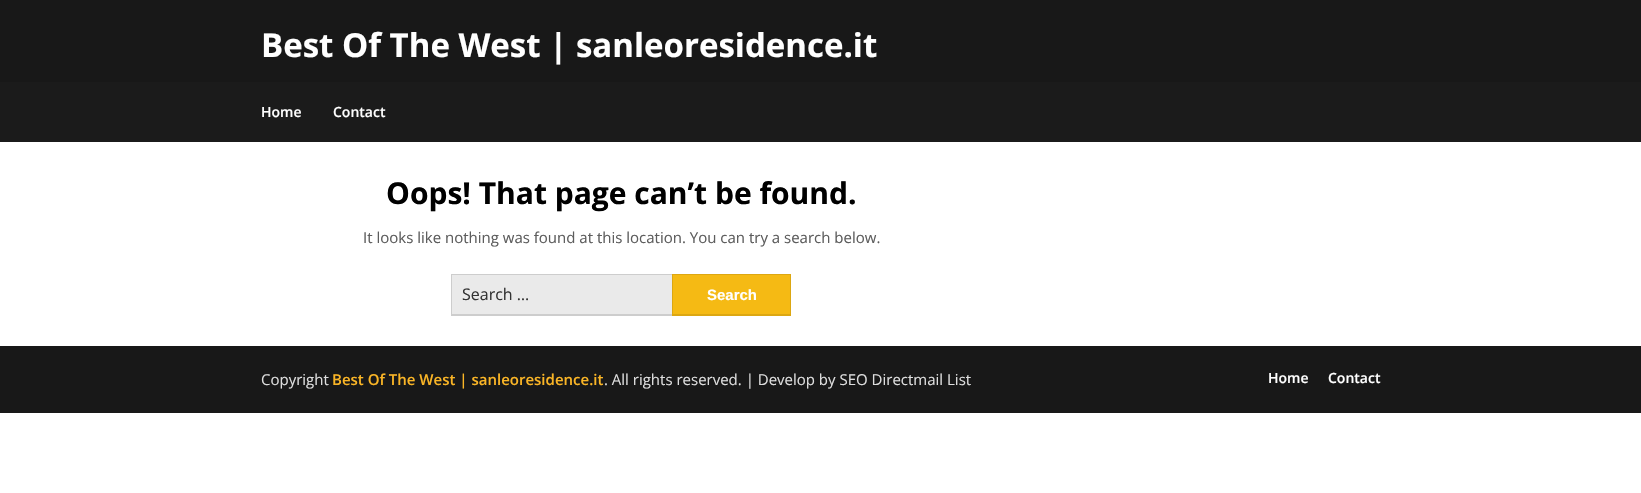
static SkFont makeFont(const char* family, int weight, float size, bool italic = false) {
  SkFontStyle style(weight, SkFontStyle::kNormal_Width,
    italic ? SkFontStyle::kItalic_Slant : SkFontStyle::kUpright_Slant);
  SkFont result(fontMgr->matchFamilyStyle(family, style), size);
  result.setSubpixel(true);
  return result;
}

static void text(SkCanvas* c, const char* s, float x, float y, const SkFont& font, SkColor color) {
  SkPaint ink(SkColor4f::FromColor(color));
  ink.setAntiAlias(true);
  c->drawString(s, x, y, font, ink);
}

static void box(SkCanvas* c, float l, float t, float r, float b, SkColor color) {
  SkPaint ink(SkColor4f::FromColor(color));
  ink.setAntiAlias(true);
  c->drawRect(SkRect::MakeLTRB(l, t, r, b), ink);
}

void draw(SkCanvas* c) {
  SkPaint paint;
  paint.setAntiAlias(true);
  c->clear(0xffffffff);
  box(c, 0, 0, 1641, 82, 0xff181818);
  SkFont face1 = makeFont("Open Sans", 700, 33);
  text(c, "Best Of The West | sanleoresidence.it", 261, 57, face1, 0xffffffff);
  box(c, 0, 82, 1641, 142, 0xff1b1b1b);
  SkFont face2 = makeFont("Open Sans", 600, 14);
  text(c, "Home", 261, 117, face2, 0xffffffff);
  text(c, "Contact", 333, 117, face2, 0xffffffff);
  SkFont face3 = makeFont("Open Sans", 700, 30);
  text(c, "Oops! That page can’t be found.", 386, 204, face3, 0xff000000);
  SkFont face4 = makeFont("Open Sans", 400, 15);
  text(c, "It looks like nothing was found at this location. You can try a search below.", 363, 243, face4, 0xff5d5d5d);
  box(c, 452, 275, 672, 314, 0xffeaeaea);
  box(c, 451, 274, 672, 275, 0xffcdcdcd);
  box(c, 451, 314, 672, 316, 0xffcdcdcd);
  box(c, 451, 274, 452, 316, 0xffcdcdcd);
  SkFont face5 = makeFont("Open Sans", 400, 16);
  text(c, "Search …", 462, 300, face5, 0xff333333);
  box(c, 672, 274, 791, 316, 0xfff5ba14);
  paint.setColor(0xffdda712);
  c->drawPath(SkPathBuilder().moveTo(672, 274).lineTo(791, 274).lineTo(790, 275).lineTo(673, 275).close().detach(), paint);
  paint.setColor(0x1a000000);
  c->drawPath(SkPathBuilder().moveTo(791, 274).lineTo(791, 316).lineTo(790, 314).lineTo(790, 275).close().detach(), paint);
  c->drawPath(SkPathBuilder().moveTo(791, 316).lineTo(672, 316).lineTo(673, 314).lineTo(790, 314).close().detach(), paint);
  c->drawPath(SkPathBuilder().moveTo(672, 316).lineTo(672, 274).lineTo(673, 275).lineTo(673, 314).close().detach(), paint);
  SkFont face6 = makeFont("Liberation Sans", 700, 15);
  text(c, "Search", 707, 300, face6, 0xffffffff);
  box(c, 0, 346, 1641, 413, 0xff181818);
  text(c, "Copyright", 261, 385, face4, 0xffdedede);
  SkFont face7 = makeFont("Open Sans", 600, 15);
  text(c, "Best Of The West | sanleoresidence.it", 332, 385, face7, 0xfffab526);
  text(c, ". All rights reserved. | Develop by SEO Directmail List", 604, 385, face4, 0xffdedede);
  text(c, "Home", 1268, 383, face2, 0xffffffff);
  text(c, "Contact", 1328, 383, face2, 0xffffffff);
}
